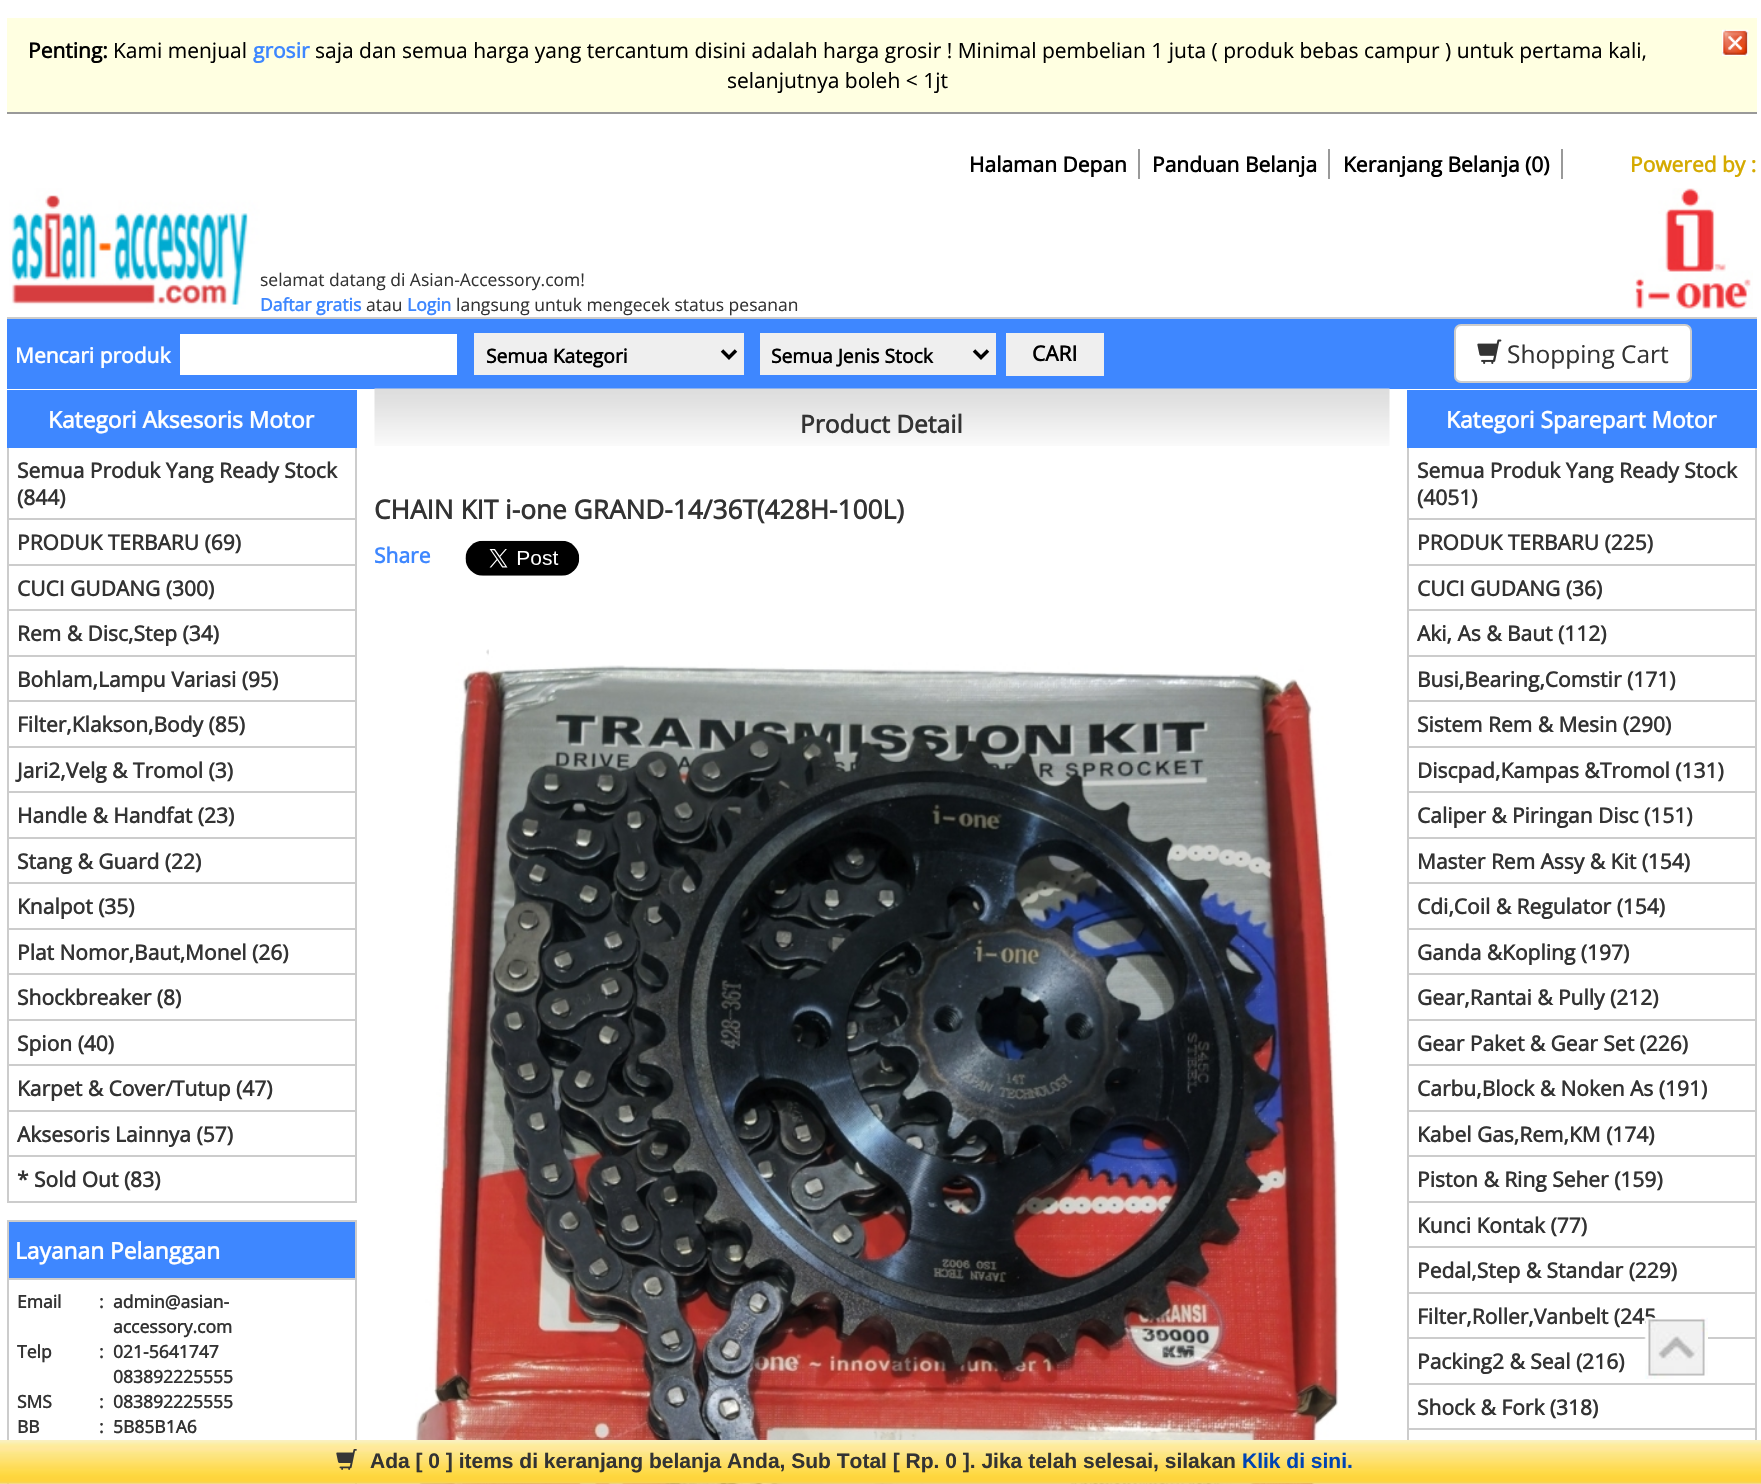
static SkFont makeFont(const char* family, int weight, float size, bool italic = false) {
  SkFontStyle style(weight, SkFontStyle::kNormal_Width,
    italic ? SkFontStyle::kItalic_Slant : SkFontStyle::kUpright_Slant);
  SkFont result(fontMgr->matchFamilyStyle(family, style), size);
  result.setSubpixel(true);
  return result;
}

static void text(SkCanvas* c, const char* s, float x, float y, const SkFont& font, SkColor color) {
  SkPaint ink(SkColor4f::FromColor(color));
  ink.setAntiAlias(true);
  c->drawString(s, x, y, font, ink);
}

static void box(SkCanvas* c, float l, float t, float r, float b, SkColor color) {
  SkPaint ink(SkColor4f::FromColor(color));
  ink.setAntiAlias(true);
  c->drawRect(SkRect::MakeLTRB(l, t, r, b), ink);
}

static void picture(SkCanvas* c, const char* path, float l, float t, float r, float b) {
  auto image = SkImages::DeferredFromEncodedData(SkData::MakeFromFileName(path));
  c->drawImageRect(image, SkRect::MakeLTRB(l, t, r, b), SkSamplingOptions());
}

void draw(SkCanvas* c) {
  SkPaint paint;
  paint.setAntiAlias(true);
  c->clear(0xffffffff);
  box(c, 7, 18, 1757, 112, 0xffffffe1);
  box(c, 7, 112, 1757, 114, 0xff999999);
  SkFont face1 = makeFont("Open Sans", 700, 21);
  text(c, "Penting:", 28, 58, face1, 0xff000000);
  SkFont face2 = makeFont("Open Sans", 400, 21);
  text(c, "Kami menjual", 113, 58, face2, 0xff000000);
  text(c, "grosir", 253, 58, face1, 0xff3e87ff);
  text(c, "saja dan semua harga yang tercantum disini adalah harga grosir ! Minimal pembelian 1 juta ( produk bebas campur ) untuk pertama kali,", 315, 58, face2, 0xff000000);
  text(c, "selanjutnya boleh < 1jt", 727, 88, face2, 0xff000000);
  picture(c, "img_01.png", 1722, 29, 1749, 56);
  box(c, 1138, 149, 1140, 179, 0xff999999);
  text(c, "Halaman Depan", 969, 172, face1, 0xff000000);
  box(c, 1328, 149, 1330, 179, 0xff999999);
  text(c, "Panduan Belanja", 1152, 172, face1, 0xff000000);
  box(c, 1561, 149, 1563, 179, 0xff999999);
  text(c, "Keranjang Belanja (0)", 1343, 172, face1, 0xff000000);
  text(c, "Powered by :", 1630, 172, face1, 0xffd5aa00);
  picture(c, "img_02.png", 9, 188, 1753, 309);
  box(c, 7, 317, 1757, 319, 0xffcccccc);
  SkFont face3 = makeFont("Open Sans", 400, 17.5f);
  text(c, "selamat datang di Asian-Accessory.com!", 260, 286, face3, 0xff333333);
  SkFont face4 = makeFont("Open Sans", 700, 17.5f);
  text(c, "Daftar gratis", 260, 311, face4, 0xff3e87ff);
  text(c, "atau", 366, 311, face3, 0xff333333);
  text(c, "Login", 407, 311, face4, 0xff3e87ff);
  text(c, "langsung untuk mengecek status pesanan", 456, 311, face3, 0xff333333);
  box(c, 7, 319, 1757, 389, 0xff3e87ff);
  text(c, "Mencari produk", 15, 363, face1, 0xffffffff);
  box(c, 180, 334, 457, 375, 0xffffffff);
  box(c, 474, 333, 744, 375, 0xffefefef);
  paint.setStyle(SkPaint::kStroke_Style);
  paint.setStrokeWidth(3.5f);
  paint.setColor(0xff000000);
  c->drawPath(SkPathBuilder().moveTo(722, 350.5f).lineTo(729, 357.5f).lineTo(736, 350.5f).detach(), paint);
  SkFont face5 = makeFont("Open Sans", 700, 19.25f);
  text(c, "Semua Kategori", 486, 363, face5, 0xff000000);
  box(c, 760, 333, 996, 375, 0xffefefef);
  c->drawPath(SkPathBuilder().moveTo(974, 350.5f).lineTo(981, 357.5f).lineTo(988, 350.5f).detach(), paint);
  text(c, "Semua Jenis Stock", 771, 363, face5, 0xff000000);
  box(c, 1006, 333, 1104, 376, 0xffefefef);
  text(c, "CARI", 1032, 361, face1, 0xff000000);
  paint.setStyle(SkPaint::kFill_Style);
  paint.setColor(0xffffffff);
  c->drawRoundRect(SkRect::MakeLTRB(1455, 325, 1691, 382), 6, 6, paint);
  paint.setStyle(SkPaint::kStroke_Style);
  paint.setStrokeWidth(2);
  paint.setColor(0xffcccccc);
  c->drawRoundRect(SkRect::MakeLTRB(1455, 325, 1691, 382), 6, 6, paint);
  picture(c, "img_03.png", 1477, 339, 1502, 364);
  SkFont face6 = makeFont("Open Sans", 400, 24.5f);
  text(c, "Shopping Cart", 1507, 363, face6, 0xff333333);
  box(c, 7, 390, 357, 448, 0xff3e87ff);
  SkFont face7 = makeFont("Open Sans", 700, 22.75f);
  text(c, "Kategori Aksesoris Motor", 48, 428, face7, 0xffffffff);
  box(c, 355, 448, 357, 565, 0xffcccccc);
  box(c, 7, 518, 357, 520, 0xffcccccc);
  box(c, 7, 448, 9, 520, 0xffcccccc);
  text(c, "Semua Produk Yang Ready Stock", 17, 478, face1, 0xff333333);
  text(c, "(844)", 17, 505, face1, 0xff333333);
  box(c, 7, 564, 357, 566, 0xffcccccc);
  box(c, 7, 520, 9, 565, 0xffcccccc);
  text(c, "PRODUK TERBARU (69)", 17, 550, face1, 0xff333333);
  box(c, 355, 565, 357, 656, 0xffcccccc);
  box(c, 7, 609, 357, 611, 0xffcccccc);
  box(c, 7, 565, 9, 611, 0xffcccccc);
  text(c, "CUCI GUDANG (300)", 17, 596, face1, 0xff333333);
  box(c, 7, 655, 357, 657, 0xffcccccc);
  box(c, 7, 611, 9, 656, 0xffcccccc);
  text(c, "Rem & Disc,Step (34)", 17, 641, face1, 0xff333333);
  box(c, 355, 656, 357, 747, 0xffcccccc);
  box(c, 7, 700, 357, 702, 0xffcccccc);
  box(c, 7, 656, 9, 702, 0xffcccccc);
  text(c, "Bohlam,Lampu Variasi (95)", 17, 687, face1, 0xff333333);
  box(c, 7, 746, 357, 748, 0xffcccccc);
  box(c, 7, 702, 9, 747, 0xffcccccc);
  text(c, "Filter,Klakson,Body (85)", 17, 732, face1, 0xff333333);
  box(c, 355, 747, 357, 838, 0xffcccccc);
  box(c, 7, 791, 357, 793, 0xffcccccc);
  box(c, 7, 747, 9, 793, 0xffcccccc);
  text(c, "Jari2,Velg & Tromol (3)", 17, 778, face1, 0xff333333);
  box(c, 7, 837, 357, 839, 0xffcccccc);
  box(c, 7, 793, 9, 838, 0xffcccccc);
  text(c, "Handle & Handfat (23)", 17, 823, face1, 0xff333333);
  box(c, 355, 838, 357, 929, 0xffcccccc);
  box(c, 7, 882, 357, 884, 0xffcccccc);
  box(c, 7, 838, 9, 884, 0xffcccccc);
  text(c, "Stang & Guard (22)", 17, 869, face1, 0xff333333);
  box(c, 7, 928, 357, 930, 0xffcccccc);
  box(c, 7, 884, 9, 929, 0xffcccccc);
  text(c, "Knalpot (35)", 17, 914, face1, 0xff333333);
  box(c, 355, 929, 357, 1020, 0xffcccccc);
  box(c, 7, 973, 357, 975, 0xffcccccc);
  box(c, 7, 929, 9, 975, 0xffcccccc);
  text(c, "Plat Nomor,Baut,Monel (26)", 17, 960, face1, 0xff333333);
  box(c, 7, 1019, 357, 1021, 0xffcccccc);
  box(c, 7, 975, 9, 1020, 0xffcccccc);
  text(c, "Shockbreaker (8)", 17, 1005, face1, 0xff333333);
  box(c, 355, 1020, 357, 1111, 0xffcccccc);
  box(c, 7, 1064, 357, 1066, 0xffcccccc);
  box(c, 7, 1020, 9, 1066, 0xffcccccc);
  text(c, "Spion (40)", 17, 1051, face1, 0xff333333);
  box(c, 7, 1110, 357, 1112, 0xffcccccc);
  box(c, 7, 1066, 9, 1111, 0xffcccccc);
  text(c, "Karpet & Cover/Tutup (47)", 17, 1096, face1, 0xff333333);
  box(c, 355, 1111, 357, 1202, 0xffcccccc);
  box(c, 7, 1155, 357, 1157, 0xffcccccc);
  box(c, 7, 1111, 9, 1157, 0xffcccccc);
  text(c, "Aksesoris Lainnya (57)", 17, 1142, face1, 0xff333333);
  box(c, 7, 1201, 357, 1203, 0xffcccccc);
  box(c, 7, 1157, 9, 1202, 0xffcccccc);
  text(c, "* Sold Out (83)", 17, 1187, face1, 0xff333333);
  box(c, 9, 1222, 355, 1278, 0xff3e87ff);
  box(c, 7, 1220, 357, 1222, 0xffcccccc);
  box(c, 355, 1220, 357, 1278, 0xffcccccc);
  box(c, 7, 1220, 9, 1278, 0xffcccccc);
  text(c, "Layanan Pelanggan", 15, 1259, face7, 0xffffffff);
  c->drawRect(SkRect::MakeLTRB(8, 1279, 356, 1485), paint);
  text(c, "Email", 17, 1308, face4, 0xff333333);
  text(c, ":", 99, 1308, face4, 0xff333333);
  text(c, "admin@asian-", 113, 1308, face4, 0xff333333);
  text(c, "accessory.com", 113, 1333, face4, 0xff333333);
  text(c, "Telp", 17, 1358, face4, 0xff333333);
  text(c, ":", 99, 1358, face4, 0xff333333);
  text(c, "021-5641747", 113, 1358, face4, 0xff333333);
  text(c, "083892225555", 113, 1383, face4, 0xff333333);
  text(c, "SMS", 17, 1408, face4, 0xff333333);
  text(c, ":", 99, 1408, face4, 0xff333333);
  text(c, "083892225555", 113, 1408, face4, 0xff333333);
  text(c, "BB", 17, 1433, face4, 0xff333333);
  text(c, ":", 99, 1433, face4, 0xff333333);
  text(c, "5B85B1A6", 113, 1433, face4, 0xff333333);
  picture(c, "img_04.png", 374, 388, 1390, 446);
  SkFont face8 = makeFont("Open Sans", 700, 24.5f);
  text(c, "Product Detail", 800, 433, face8, 0xff333333);
  SkFont face9 = makeFont("Open Sans", 700, 26.25f);
  text(c, "CHAIN KIT i-one GRAND-14/36T(428H-100L)", 374, 519, face9, 0xff333333);
  text(c, "Share", 374, 563, face1, 0xff3e87ff);
  picture(c, "img_05.png", 465, 540, 580, 576);
  picture(c, "img_06.png", 415, 649, 1339, 1484);
  box(c, 1407, 390, 1757, 448, 0xff3e87ff);
  text(c, "Kategori Sparepart Motor", 1446, 428, face7, 0xffffffff);
  box(c, 1755, 448, 1757, 565, 0xffcccccc);
  box(c, 1407, 518, 1757, 520, 0xffcccccc);
  box(c, 1407, 448, 1409, 520, 0xffcccccc);
  text(c, "Semua Produk Yang Ready Stock", 1417, 478, face1, 0xff333333);
  text(c, "(4051)", 1417, 505, face1, 0xff333333);
  box(c, 1407, 564, 1757, 566, 0xffcccccc);
  box(c, 1407, 520, 1409, 565, 0xffcccccc);
  text(c, "PRODUK TERBARU (225)", 1417, 550, face1, 0xff333333);
  box(c, 1755, 565, 1757, 656, 0xffcccccc);
  box(c, 1407, 609, 1757, 611, 0xffcccccc);
  box(c, 1407, 565, 1409, 611, 0xffcccccc);
  text(c, "CUCI GUDANG (36)", 1417, 596, face1, 0xff333333);
  box(c, 1407, 655, 1757, 657, 0xffcccccc);
  box(c, 1407, 611, 1409, 656, 0xffcccccc);
  text(c, "Aki, As & Baut (112)", 1417, 641, face1, 0xff333333);
  box(c, 1755, 656, 1757, 747, 0xffcccccc);
  box(c, 1407, 700, 1757, 702, 0xffcccccc);
  box(c, 1407, 656, 1409, 702, 0xffcccccc);
  text(c, "Busi,Bearing,Comstir (171)", 1417, 687, face1, 0xff333333);
  box(c, 1407, 746, 1757, 748, 0xffcccccc);
  box(c, 1407, 702, 1409, 747, 0xffcccccc);
  text(c, "Sistem Rem & Mesin (290)", 1417, 732, face1, 0xff333333);
  box(c, 1755, 747, 1757, 838, 0xffcccccc);
  box(c, 1407, 791, 1757, 793, 0xffcccccc);
  box(c, 1407, 747, 1409, 793, 0xffcccccc);
  text(c, "Discpad,Kampas &Tromol (131)", 1417, 778, face1, 0xff333333);
  box(c, 1407, 837, 1757, 839, 0xffcccccc);
  box(c, 1407, 793, 1409, 838, 0xffcccccc);
  text(c, "Caliper & Piringan Disc (151)", 1417, 823, face1, 0xff333333);
  box(c, 1755, 838, 1757, 929, 0xffcccccc);
  box(c, 1407, 882, 1757, 884, 0xffcccccc);
  box(c, 1407, 838, 1409, 884, 0xffcccccc);
  text(c, "Master Rem Assy & Kit (154)", 1417, 869, face1, 0xff333333);
  box(c, 1407, 928, 1757, 930, 0xffcccccc);
  box(c, 1407, 884, 1409, 929, 0xffcccccc);
  text(c, "Cdi,Coil & Regulator (154)", 1417, 914, face1, 0xff333333);
  box(c, 1755, 929, 1757, 1020, 0xffcccccc);
  box(c, 1407, 973, 1757, 975, 0xffcccccc);
  box(c, 1407, 929, 1409, 975, 0xffcccccc);
  text(c, "Ganda &Kopling (197)", 1417, 960, face1, 0xff333333);
  box(c, 1407, 1019, 1757, 1021, 0xffcccccc);
  box(c, 1407, 975, 1409, 1020, 0xffcccccc);
  text(c, "Gear,Rantai & Pully (212)", 1417, 1005, face1, 0xff333333);
  box(c, 1755, 1020, 1757, 1111, 0xffcccccc);
  box(c, 1407, 1064, 1757, 1066, 0xffcccccc);
  box(c, 1407, 1020, 1409, 1066, 0xffcccccc);
  text(c, "Gear Paket & Gear Set (226)", 1417, 1051, face1, 0xff333333);
  box(c, 1407, 1110, 1757, 1112, 0xffcccccc);
  box(c, 1407, 1066, 1409, 1111, 0xffcccccc);
  text(c, "Carbu,Block & Noken As (191)", 1417, 1096, face1, 0xff333333);
  box(c, 1755, 1111, 1757, 1202, 0xffcccccc);
  box(c, 1407, 1155, 1757, 1157, 0xffcccccc);
  box(c, 1407, 1111, 1409, 1157, 0xffcccccc);
  text(c, "Kabel Gas,Rem,KM (174)", 1417, 1142, face1, 0xff333333);
  box(c, 1407, 1201, 1757, 1203, 0xffcccccc);
  box(c, 1407, 1157, 1409, 1202, 0xffcccccc);
  text(c, "Piston & Ring Seher (159)", 1417, 1187, face1, 0xff333333);
  box(c, 1755, 1202, 1757, 1293, 0xffcccccc);
  box(c, 1407, 1246, 1757, 1248, 0xffcccccc);
  box(c, 1407, 1202, 1409, 1248, 0xffcccccc);
  text(c, "Kunci Kontak (77)", 1417, 1233, face1, 0xff333333);
  box(c, 1407, 1292, 1757, 1294, 0xffcccccc);
  box(c, 1407, 1248, 1409, 1293, 0xffcccccc);
  text(c, "Pedal,Step & Standar (229)", 1417, 1278, face1, 0xff333333);
  box(c, 1755, 1293, 1757, 1384, 0xffcccccc);
  box(c, 1407, 1337, 1757, 1339, 0xffcccccc);
  box(c, 1407, 1293, 1409, 1339, 0xffcccccc);
  text(c, "Filter,Roller,Vanbelt (245", 1417, 1324, face1, 0xff333333);
  box(c, 1407, 1383, 1757, 1385, 0xffcccccc);
  box(c, 1407, 1339, 1409, 1384, 0xffcccccc);
  text(c, "Packing2 & Seal (216)", 1417, 1369, face1, 0xff333333);
  box(c, 1755, 1384, 1757, 1440, 0xffcccccc);
  box(c, 1407, 1428, 1757, 1430, 0xffcccccc);
  box(c, 1407, 1384, 1409, 1440, 0xffcccccc);
  text(c, "Shock & Fork (318)", 1417, 1415, face1, 0xff333333);
  picture(c, "img_07.png", 1644, 1317, 1708, 1379);
  picture(c, "img_08.png", 0, 1440, 1761, 1484);
  picture(c, "img_09.png", 336, 1449, 357, 1470);
  SkFont face10 = makeFont("Liberation Sans", 700, 21);
  text(c, "Ada [ 0 ] items di keranjang belanja Anda, Sub Total [ Rp. 0 ]. Jika telah selesai, silakan", 370, 1468, face10, 0xff333333);
  text(c, "Klik di sini.", 1242, 1468, face10, 0xff0044b3);
}
